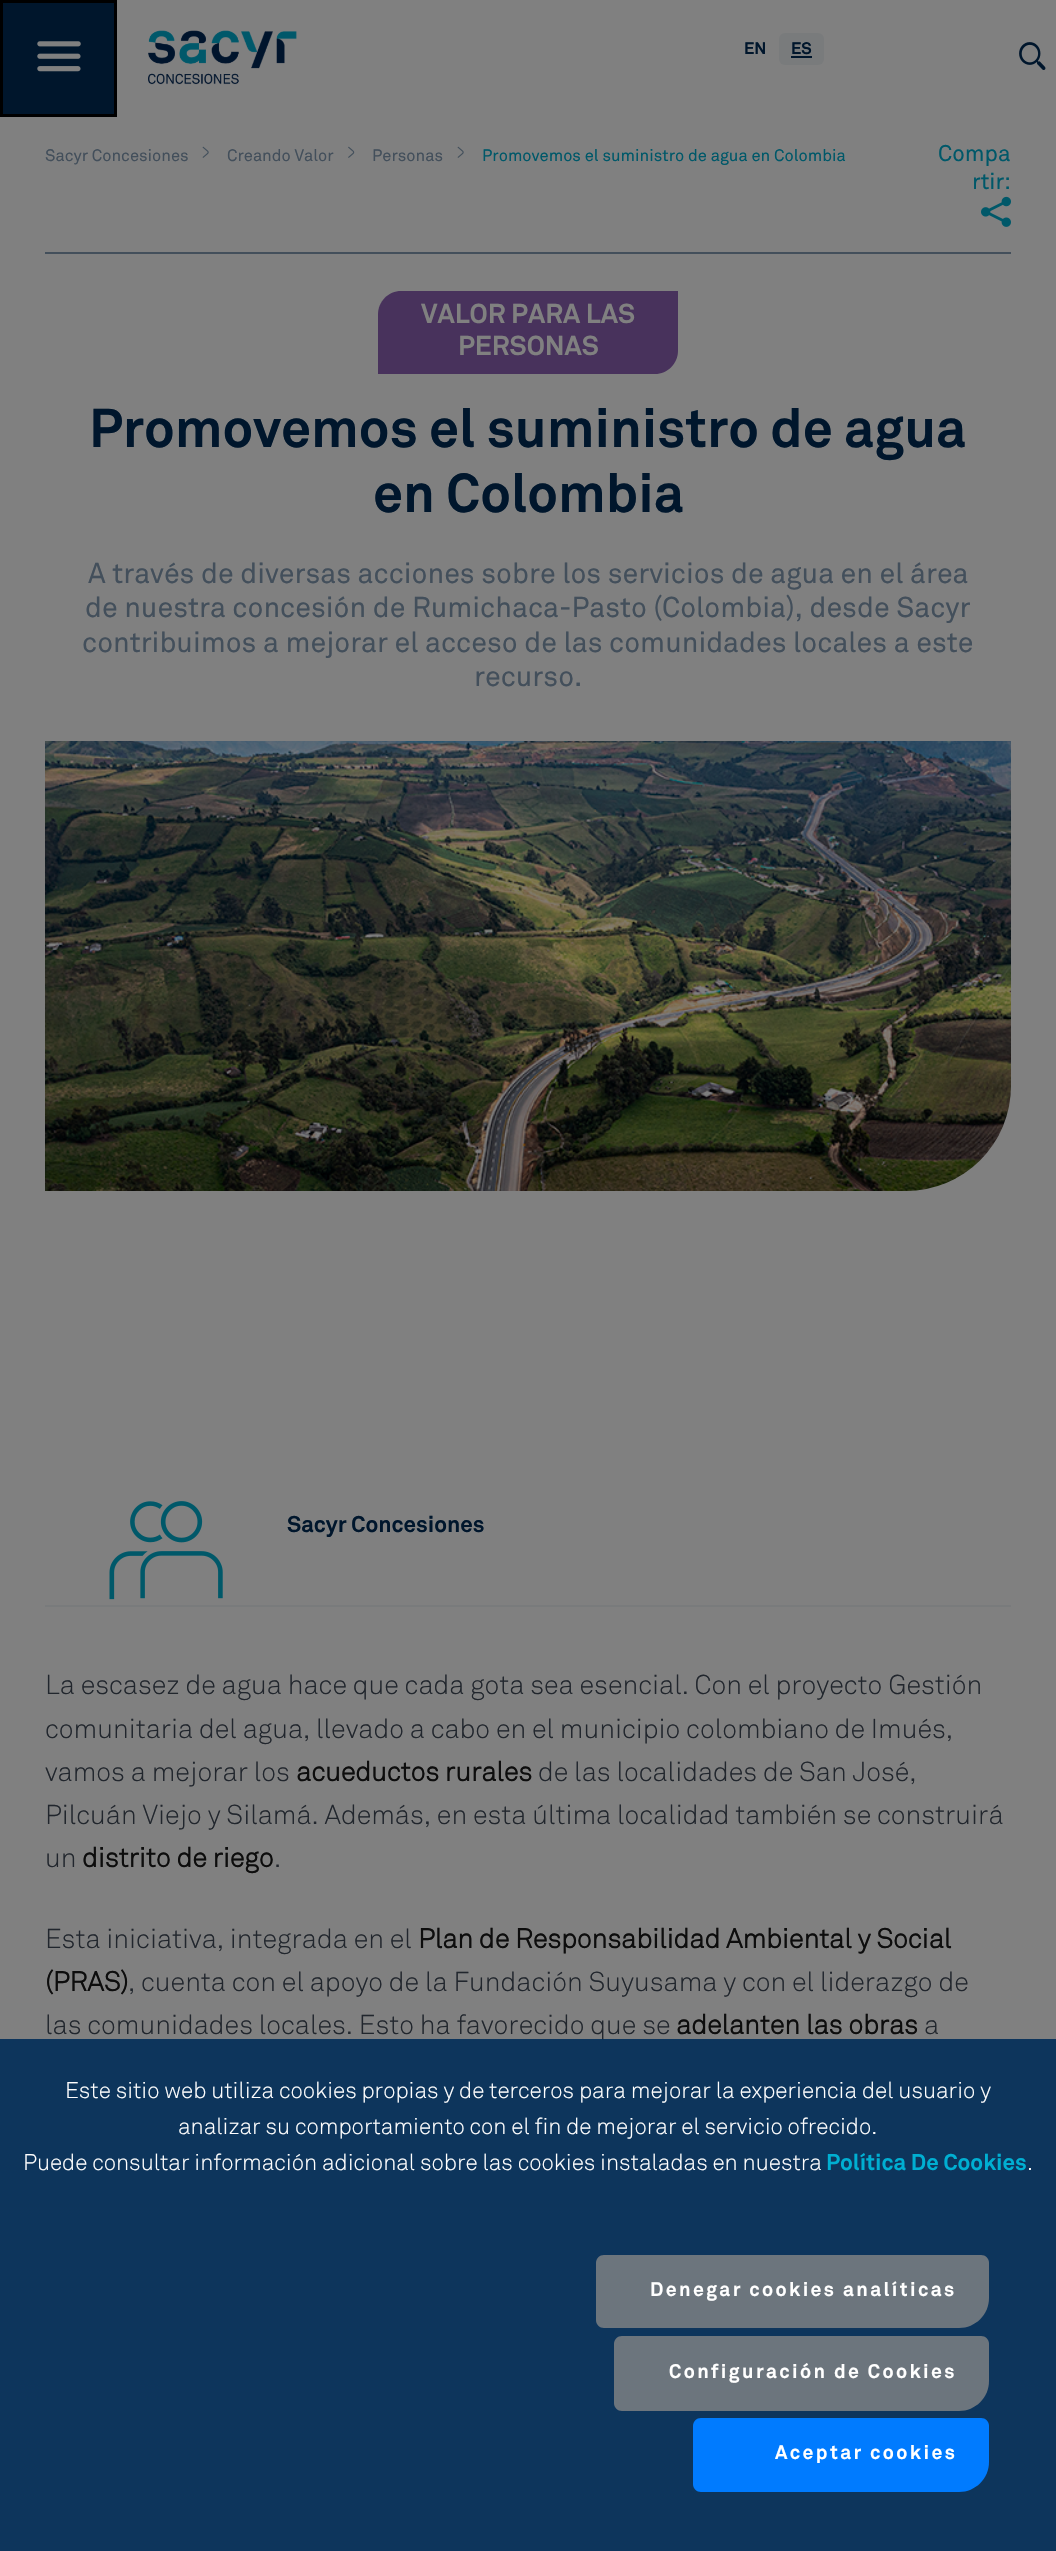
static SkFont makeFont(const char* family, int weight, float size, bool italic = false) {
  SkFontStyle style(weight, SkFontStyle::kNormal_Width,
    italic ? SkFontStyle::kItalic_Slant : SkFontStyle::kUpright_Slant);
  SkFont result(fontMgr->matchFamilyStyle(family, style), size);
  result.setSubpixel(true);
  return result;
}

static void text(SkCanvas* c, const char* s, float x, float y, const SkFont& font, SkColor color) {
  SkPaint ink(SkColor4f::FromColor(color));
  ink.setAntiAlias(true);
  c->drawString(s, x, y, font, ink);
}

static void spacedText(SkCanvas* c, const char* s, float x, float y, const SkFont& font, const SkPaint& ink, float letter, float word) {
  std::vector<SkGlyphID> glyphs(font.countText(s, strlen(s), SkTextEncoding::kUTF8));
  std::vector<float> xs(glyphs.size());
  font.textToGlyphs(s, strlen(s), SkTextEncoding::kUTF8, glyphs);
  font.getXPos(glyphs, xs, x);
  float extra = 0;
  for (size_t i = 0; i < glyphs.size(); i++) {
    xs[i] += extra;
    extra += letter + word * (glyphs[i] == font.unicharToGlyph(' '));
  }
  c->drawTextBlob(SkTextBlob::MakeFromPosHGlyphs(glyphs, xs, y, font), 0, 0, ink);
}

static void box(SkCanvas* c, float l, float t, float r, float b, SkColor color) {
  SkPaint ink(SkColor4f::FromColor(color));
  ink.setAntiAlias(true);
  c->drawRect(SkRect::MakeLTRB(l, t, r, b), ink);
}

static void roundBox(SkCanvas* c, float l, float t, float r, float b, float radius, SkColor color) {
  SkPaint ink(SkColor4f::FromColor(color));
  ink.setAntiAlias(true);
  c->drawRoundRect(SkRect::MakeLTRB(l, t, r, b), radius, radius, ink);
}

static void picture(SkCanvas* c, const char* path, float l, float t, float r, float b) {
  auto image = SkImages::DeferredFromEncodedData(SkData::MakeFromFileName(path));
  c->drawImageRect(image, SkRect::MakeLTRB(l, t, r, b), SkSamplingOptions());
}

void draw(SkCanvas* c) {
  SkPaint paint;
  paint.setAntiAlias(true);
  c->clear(0xff808080);
  paint.setColor(0xff00162c);
  c->drawRect(SkRect::MakeLTRB(1.5f, 1.5f, 115.5f, 115.5f), paint);
  paint.setStyle(SkPaint::kStroke_Style);
  paint.setStrokeWidth(3);
  paint.setColor(0xff000000);
  c->drawRect(SkRect::MakeLTRB(1.5f, 1.5f, 115.5f, 115.5f), paint);
  picture(c, "img_01.png", 37, 41, 81, 72);
  picture(c, "img_02.png", 148, 30, 297, 85);
  SkFont face1 = makeFont("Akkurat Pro", 700, 16.5f);
  text(c, "EN", 744, 54, face1, 0xff00162c);
  roundBox(c, 779, 33, 824, 65, 6, 0xff797b7c);
  text(c, "ES", 791, 54, face1, 0xff00162c);
  box(c, 791, 56, 812, 58, 0xff00162c);
  picture(c, "img_03.png", 1019, 42, 1046, 70);
  box(c, 45, 252, 1011, 254, 0xff434f5b);
  SkFont face2 = makeFont("Akkurat Pro", 400, 16.5f);
  text(c, "Sacyr Concesiones", 45, 161, face2, 0xff434f5b);
  picture(c, "img_04.png", 202, 146, 209, 158);
  text(c, "Creando Valor", 227, 161, face2, 0xff434f5b);
  picture(c, "img_05.png", 348, 146, 355, 158);
  text(c, "Personas", 372, 161, face2, 0xff434f5b);
  picture(c, "img_04.png", 457, 146, 464, 158);
  text(c, "Promovemos el suministro de agua en Colombia", 482, 161, face2, 0xff005869);
  SkFont face3 = makeFont("Akkurat Pro", 400, 22.5f);
  text(c, "Compa", 938, 161, face3, 0xff005869);
  text(c, "rtir:", 972, 189, face3, 0xff005869);
  picture(c, "img_06.png", 981, 196, 1011, 227);
  paint.setStyle(SkPaint::kFill_Style);
  paint.setColor(0xff48325c);
  c->drawPath(SkPathBuilder().moveTo(401, 291).lineTo(678, 291).lineTo(678, 351).cubicTo(678, 363.5f, 667.5f, 374, 655, 374).lineTo(378, 374).lineTo(378, 314).cubicTo(378, 301.5f, 388.5f, 291, 401, 291).close().detach(), paint);
  SkFont face4 = makeFont("Akkurat Pro", 700, 27);
  text(c, "VALOR PARA LAS", 421, 323, face4, 0xff808080);
  text(c, "PERSONAS", 458, 355, face4, 0xff808080);
  SkFont face5 = makeFont("Akkurat Pro", 700, 54);
  text(c, "Promovemos el suministro de agua", 89, 447, face5, 0xff00162c);
  text(c, "en Colombia", 373, 512, face5, 0xff00162c);
  SkFont face6 = makeFont("Akkurat Pro", 400, 28.5f);
  text(c, "A través de diversas acciones sobre los servicios de agua en el área", 88, 583, face6, 0xff434f5b);
  text(c, "de nuestra concesión de Rumichaca-Pasto (Colombia), desde Sacyr", 85, 617, face6, 0xff434f5b);
  text(c, "contribuimos a mejorar el acceso de las comunidades locales a este", 82, 652, face6, 0xff434f5b);
  text(c, "recurso.", 474, 686, face6, 0xff434f5b);
  picture(c, "img_07.png", 45, 741, 1011, 1191);
  box(c, 45, 1605, 1011, 1607, 0xff797b7c);
  picture(c, "img_08.png", 109, 1501, 223, 1600);
  SkFont face7 = makeFont("Akkurat Pro", 700, 22.5f);
  text(c, "Sacyr Concesiones", 287, 1532, face7, 0xff00162c);
  SkFont face8 = makeFont("Akkurat Pro", 300, 27);
  text(c, "La escasez de agua hace que cada gota sea esencial. Con el proyecto Gestión", 45, 1694, face8, 0xff21262d);
  text(c, "comunitaria del agua, llevado a cabo en el municipio colombiano de Imués,", 45, 1738, face8, 0xff21262d);
  text(c, "vamos a mejorar los", 45, 1781, face8, 0xff21262d);
  SkFont face9 = makeFont("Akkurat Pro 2", 700, 27);
  text(c, "acueductos rurales", 296, 1781, face9, 0xff0d0d0d);
  text(c, "de las localidades de San José,", 538, 1781, face8, 0xff21262d);
  text(c, "Pilcuán Viejo y Silamá. Además, en esta última localidad también se construirá", 45, 1824, face8, 0xff21262d);
  text(c, "un", 45, 1867, face8, 0xff21262d);
  text(c, "distrito de riego", 82, 1867, face9, 0xff0d0d0d);
  text(c, ".", 274, 1867, face8, 0xff21262d);
  text(c, "Esta iniciativa, integrada en el", 45, 1948, face8, 0xff21262d);
  text(c, "Plan de Responsabilidad Ambiental y Social", 418, 1948, face9, 0xff0d0d0d);
  text(c, "(PRAS)", 45, 1991, face9, 0xff0d0d0d);
  text(c, ", cuenta con el apoyo de la Fundación Suyusama y con el liderazgo de", 128, 1991, face8, 0xff21262d);
  text(c, "las comunidades locales. Esto ha favorecido que se", 45, 2034, face8, 0xff21262d);
  text(c, "adelanten las obras", 676, 2034, face9, 0xff0d0d0d);
  text(c, "a", 924, 2034, face8, 0xff21262d);
  box(c, 0, 2039, 1056, 2551, 0xe6002c58);
  SkFont face10 = makeFont("Akkurat Pro", 300, 22.5f);
  text(c, "Este sitio web utiliza cookies propias y de terceros para mejorar la experiencia del usuario y", 65, 2098, face10, 0xffffffff);
  text(c, "analizar su comportamiento con el fin de mejorar el servicio ofrecido.", 178, 2134, face10, 0xffffffff);
  text(c, "Puede consultar información adicional sobre las cookies instaladas en nuestra", 23, 2170, face10, 0xffffffff);
  text(c, "Política De Cookies", 826, 2170, face7, 0xff00afd2);
  text(c, ".", 1027, 2170, face10, 0xffffffff);
  paint.setColor(0xff6c757d);
  c->drawPath(SkPathBuilder().moveTo(604, 2255).lineTo(981, 2255).cubicTo(985.5f, 2255, 989, 2258.5f, 989, 2263).lineTo(989, 2298).cubicTo(989, 2314.5f, 975.5f, 2328, 959, 2328).lineTo(604, 2328).cubicTo(599.5f, 2328, 596, 2324.5f, 596, 2320).lineTo(596, 2263).cubicTo(596, 2258.5f, 599.5f, 2255, 604, 2255).close().detach(), paint);
  SkFont face11 = makeFont("Akkurat Pro", 700, 19.5f);
  paint.setColor(0xffffffff);
  spacedText(c, "Denegar cookies analíticas", 650, 2296, face11, paint, 2.4f, 0);
  paint.setColor(0xff6c757d);
  c->drawPath(SkPathBuilder().moveTo(622, 2336).lineTo(981, 2336).cubicTo(985.5f, 2336, 989, 2339.5f, 989, 2344).lineTo(989, 2381).cubicTo(989, 2397.5f, 975.5f, 2411, 959, 2411).lineTo(622, 2411).cubicTo(617.5f, 2411, 614, 2407.5f, 614, 2403).lineTo(614, 2344).cubicTo(614, 2339.5f, 617.5f, 2336, 622, 2336).close().detach(), paint);
  paint.setColor(0xffffffff);
  spacedText(c, "Configuración de Cookies", 669, 2378, face11, paint, 2.4f, 0);
  paint.setColor(0xff007bff);
  c->drawPath(SkPathBuilder().moveTo(701, 2418).lineTo(981, 2418).cubicTo(985.5f, 2418, 989, 2421.5f, 989, 2426).lineTo(989, 2462).cubicTo(989, 2478.5f, 975.5f, 2492, 959, 2492).lineTo(701, 2492).cubicTo(696.5f, 2492, 693, 2488.5f, 693, 2484).lineTo(693, 2426).cubicTo(693, 2421.5f, 696.5f, 2418, 701, 2418).close().detach(), paint);
  paint.setColor(0xffffffff);
  spacedText(c, "Aceptar cookies", 775, 2459, face11, paint, 2.4f, 0);
}
